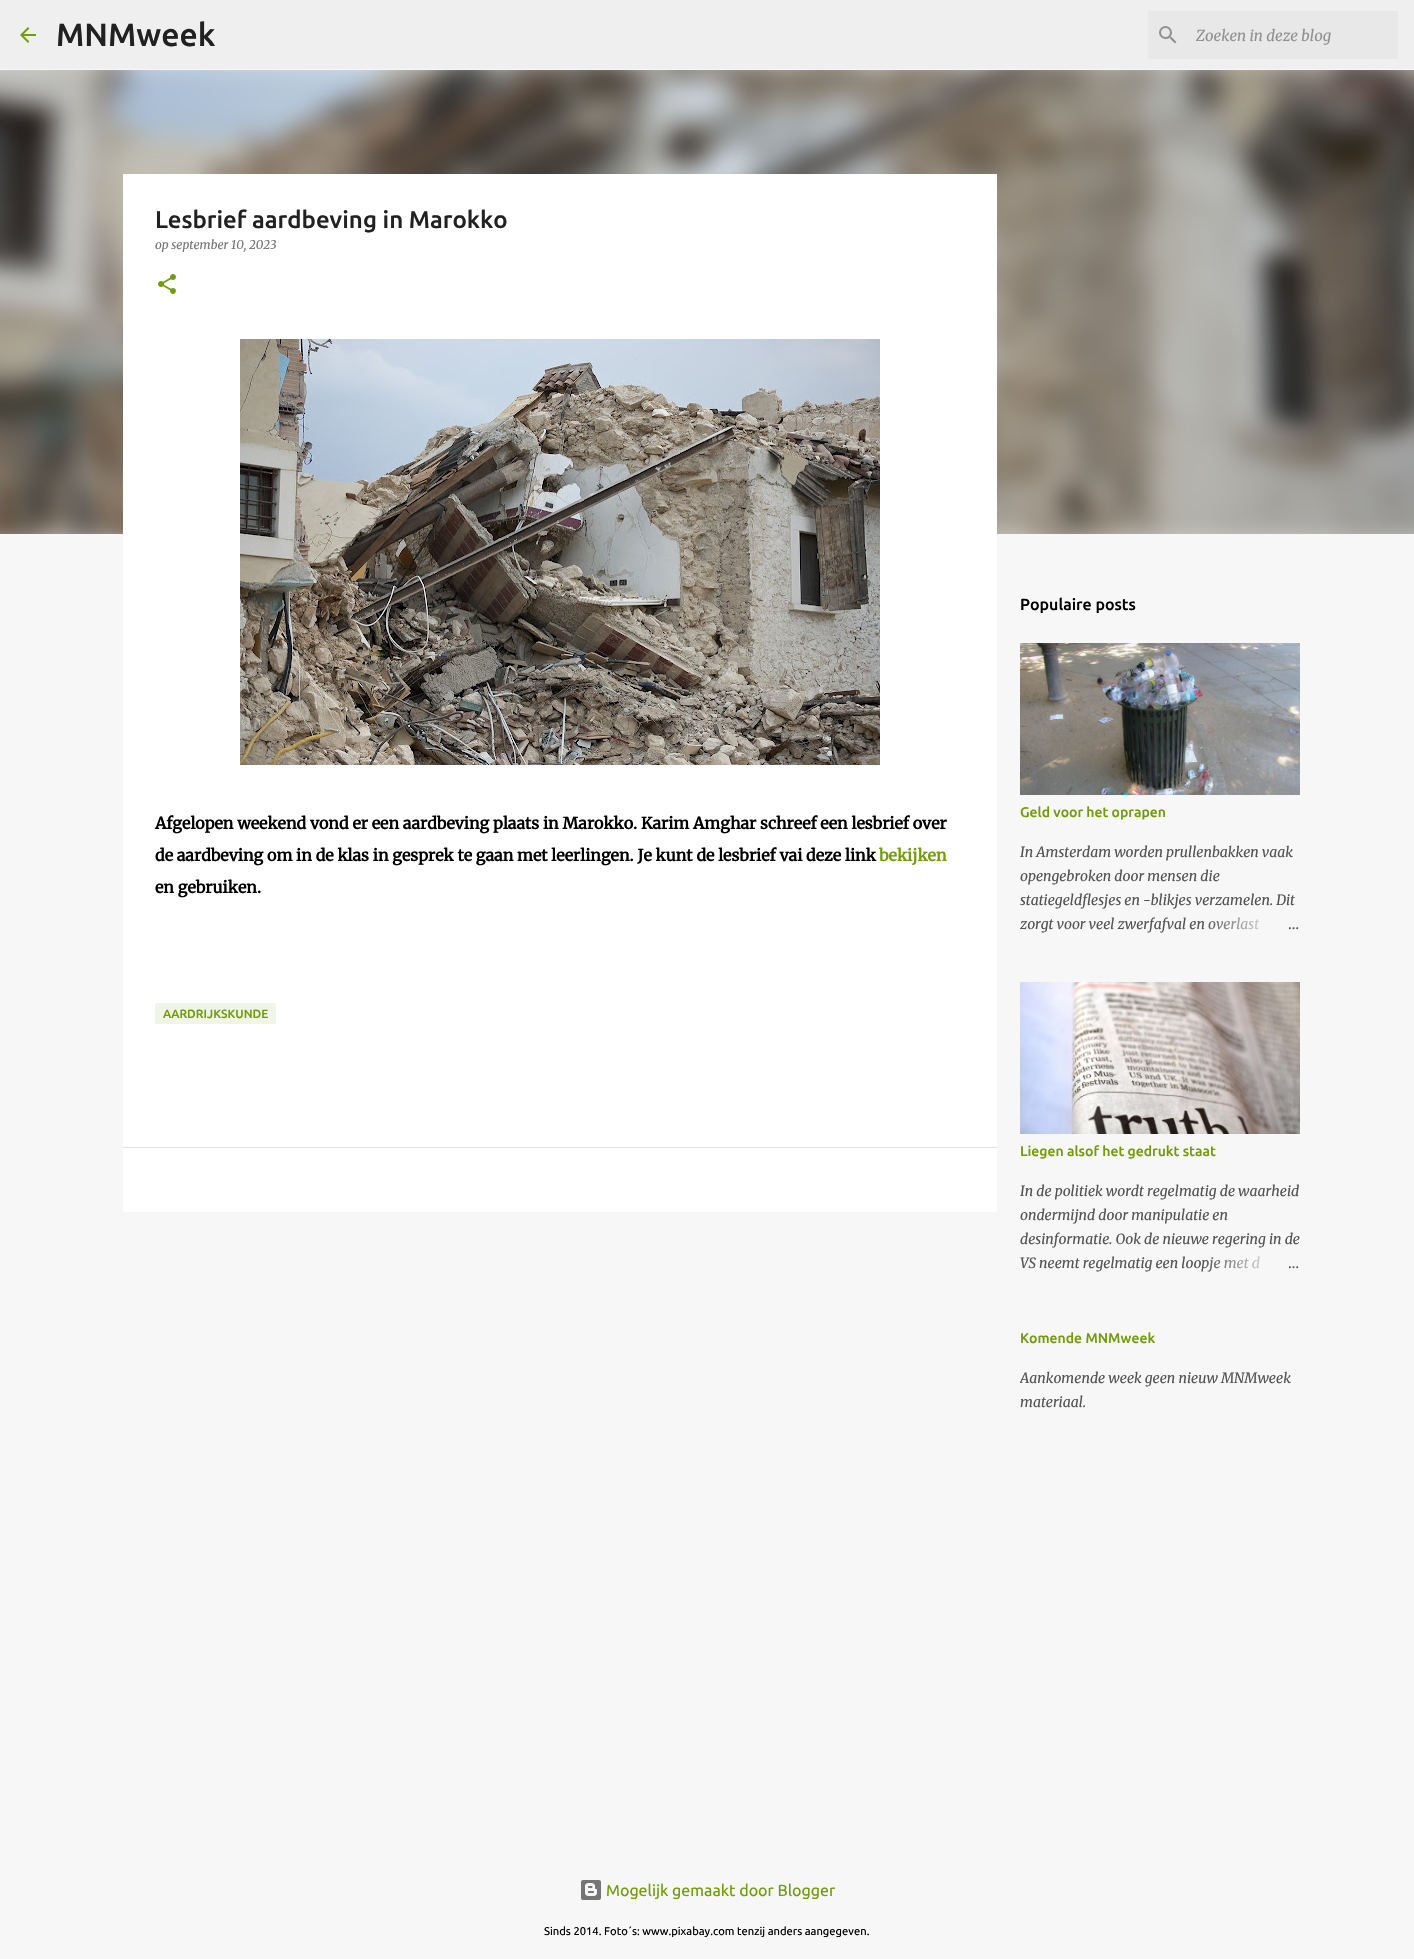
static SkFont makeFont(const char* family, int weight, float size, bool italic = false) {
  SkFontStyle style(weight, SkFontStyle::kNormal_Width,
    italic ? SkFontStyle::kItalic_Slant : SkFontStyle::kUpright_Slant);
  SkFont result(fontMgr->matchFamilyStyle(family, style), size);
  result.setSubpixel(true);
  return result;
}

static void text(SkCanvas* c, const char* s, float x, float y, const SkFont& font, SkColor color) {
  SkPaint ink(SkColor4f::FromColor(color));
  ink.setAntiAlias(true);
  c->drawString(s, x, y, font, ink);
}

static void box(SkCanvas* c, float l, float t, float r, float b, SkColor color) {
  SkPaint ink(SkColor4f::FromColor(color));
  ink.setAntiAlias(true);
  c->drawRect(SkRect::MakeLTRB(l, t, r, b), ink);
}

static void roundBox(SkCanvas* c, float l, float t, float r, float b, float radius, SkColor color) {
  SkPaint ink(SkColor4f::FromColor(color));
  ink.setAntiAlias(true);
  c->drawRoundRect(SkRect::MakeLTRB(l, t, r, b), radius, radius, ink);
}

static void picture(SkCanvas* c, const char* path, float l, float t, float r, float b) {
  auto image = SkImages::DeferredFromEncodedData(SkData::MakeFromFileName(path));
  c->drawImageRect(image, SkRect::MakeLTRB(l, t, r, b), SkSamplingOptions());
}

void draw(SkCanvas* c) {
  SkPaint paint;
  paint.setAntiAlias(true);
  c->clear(0xfff7f7f7);
  box(c, 0, 0, 1414, 69, 0xffefefef);
  picture(c, "img_01.png", 20, 27, 36, 43);
  SkFont face1 = makeFont("Ubuntu", 500, 32);
  text(c, "MNMweek", 56, 46, face1, 0xff212121);
  box(c, 1148, 11, 1398, 59, 0xffe8e8e8);
  picture(c, "img_02.png", 1159, 26, 1177, 44);
  SkFont face2 = makeFont("Merriweather", 400, 15, true);
  text(c, "Zoeken in deze blog", 1196, 41, face2, 0xff909090);
  picture(c, "img_07.png", 0, 70, 1414, 534);
  box(c, 123, 174, 997, 1147, 0xffffffff);
  SkFont face3 = makeFont("Ubuntu", 500, 24);
  text(c, "Lesbrief aardbeving in Marokko", 155, 228, face3, 0xff212121);
  SkFont face4 = makeFont("Merriweather", 400, 12, true);
  text(c, "op september 10, 2023", 155, 249, face4, 0xff757575);
  picture(c, "img_03.png", 158, 274, 176, 294);
  picture(c, "img_04.png", 240, 339, 880, 765);
  SkFont face5 = makeFont("Merriweather", 700, 16);
  text(c, "Afgelopen weekend vond er een aardbeving plaats in Marokko. Karim Amghar schreef een lesbrief over", 155, 829, face5, 0xff000000);
  text(c, "de aardbeving om in de klas in gesprek te gaan met leerlingen. Je kunt de lesbrief vai deze link", 155, 861, face5, 0xff000000);
  text(c, "bekijken", 879, 861, face5, 0xff729c0b);
  text(c, "en gebruiken.", 155, 893, face5, 0xff000000);
  roundBox(c, 155, 1003, 276, 1024, 2, 0xfff1f5e7);
  SkFont face6 = makeFont("Ubuntu", 500, 12);
  text(c, "AARDRIJKSKUNDE", 163, 1018, face6, 0xff729c0b);
  box(c, 123, 1148, 997, 1212, 0xffffffff);
  box(c, 123, 1147, 997, 1148, 0xffe0e0e0);
  SkFont face7 = makeFont("Ubuntu", 500, 16);
  text(c, "Populaire posts", 1020, 610, face7, 0xff000000);
  picture(c, "img_05.png", 1020, 643, 1300, 795);
  SkFont face8 = makeFont("Ubuntu", 500, 14);
  text(c, "Geld voor het oprapen", 1020, 817, face8, 0xff729c0b);
  SkFont face9 = makeFont("Merriweather", 400, 14, true);
  text(c, "In Amsterdam worden prullenbakken vaak", 1020, 857, face9, 0xff535353);
  text(c, "opengebroken door mensen die", 1020, 881, face9, 0xff535353);
  text(c, "statiegeldflesjes en -blikjes verzamelen. Dit", 1020, 905, face9, 0xff535353);
  text(c, "zorgt voor veel zwerfafval en overlast", 1020, 929, face9, 0xff535353);
  {
    const SkColor colors[] = {0xfff7f7f7, 0xfff7f7f7, 0x00f7f7f7};
    const float stops[] = {0, 0.2f, 1};
    const SkPoint ends[] = {{1300, 924}, {1204, 924}};
    paint.setShader(SkGradientShader::MakeLinear(ends, colors, stops, 3, SkTileMode::kClamp));
    paint.setAlpha(255);
  }
  c->drawRect(SkRect::MakeLTRB(1208, 917, 1259, 930), paint);
  SkFont face10 = makeFont("Merriweather", 300, 14);
  text(c, "…", 1288, 929, face10, 0xff535353);
  picture(c, "img_06.png", 1020, 982, 1300, 1134);
  text(c, "Liegen alsof het gedrukt staat", 1020, 1156, face8, 0xff729c0b);
  text(c, "In de politiek wordt regelmatig de waarheid", 1020, 1196, face9, 0xff535353);
  text(c, "ondermijnd door manipulatie en", 1020, 1220, face9, 0xff535353);
  text(c, "desinformatie. Ook de nieuwe regering in de", 1020, 1244, face9, 0xff535353);
  text(c, "VS neemt regelmatig een loopje met d", 1020, 1268, face9, 0xff535353);
  {
    const SkColor colors[] = {0xfff7f7f7, 0xfff7f7f7, 0x00f7f7f7};
    const float stops[] = {0, 0.2f, 1};
    const SkPoint ends[] = {{1300, 1263}, {1204, 1263}};
    paint.setShader(SkGradientShader::MakeLinear(ends, colors, stops, 3, SkTileMode::kClamp));
    paint.setAlpha(255);
  }
  c->drawRect(SkRect::MakeLTRB(1206, 1256, 1260, 1272), paint);
  text(c, "…", 1288, 1268, face10, 0xff535353);
  text(c, "Komende MNMweek", 1020, 1343, face8, 0xff729c0b);
  c->save();
  c->clipRect(SkRect::MakeLTRB(1020, 1366, 1300, 1414));
  text(c, "Aankomende week geen nieuw MNMweek", 1020, 1383, face9, 0xff535353);
  c->restore();
  text(c, "materiaal.", 1020, 1407, face9, 0xff535353);
  picture(c, "img_08.png", 581, 1880, 601, 1900);
  SkFont face11 = makeFont("Ubuntu", 400, 16);
  text(c, "Mogelijk gemaakt door Blogger", 606, 1896, face11, 0xff729c0b);
  SkFont face12 = makeFont("Ubuntu", 400, 11.2f);
  text(c, "Sinds 2014. Foto´s: www.pixabay.com tenzij anders aangegeven.", 544, 1935, face12, 0xff000000);
}
